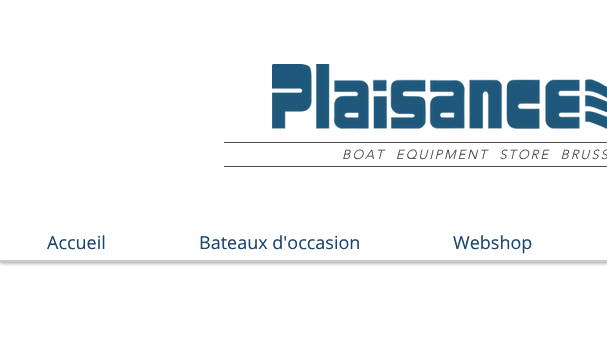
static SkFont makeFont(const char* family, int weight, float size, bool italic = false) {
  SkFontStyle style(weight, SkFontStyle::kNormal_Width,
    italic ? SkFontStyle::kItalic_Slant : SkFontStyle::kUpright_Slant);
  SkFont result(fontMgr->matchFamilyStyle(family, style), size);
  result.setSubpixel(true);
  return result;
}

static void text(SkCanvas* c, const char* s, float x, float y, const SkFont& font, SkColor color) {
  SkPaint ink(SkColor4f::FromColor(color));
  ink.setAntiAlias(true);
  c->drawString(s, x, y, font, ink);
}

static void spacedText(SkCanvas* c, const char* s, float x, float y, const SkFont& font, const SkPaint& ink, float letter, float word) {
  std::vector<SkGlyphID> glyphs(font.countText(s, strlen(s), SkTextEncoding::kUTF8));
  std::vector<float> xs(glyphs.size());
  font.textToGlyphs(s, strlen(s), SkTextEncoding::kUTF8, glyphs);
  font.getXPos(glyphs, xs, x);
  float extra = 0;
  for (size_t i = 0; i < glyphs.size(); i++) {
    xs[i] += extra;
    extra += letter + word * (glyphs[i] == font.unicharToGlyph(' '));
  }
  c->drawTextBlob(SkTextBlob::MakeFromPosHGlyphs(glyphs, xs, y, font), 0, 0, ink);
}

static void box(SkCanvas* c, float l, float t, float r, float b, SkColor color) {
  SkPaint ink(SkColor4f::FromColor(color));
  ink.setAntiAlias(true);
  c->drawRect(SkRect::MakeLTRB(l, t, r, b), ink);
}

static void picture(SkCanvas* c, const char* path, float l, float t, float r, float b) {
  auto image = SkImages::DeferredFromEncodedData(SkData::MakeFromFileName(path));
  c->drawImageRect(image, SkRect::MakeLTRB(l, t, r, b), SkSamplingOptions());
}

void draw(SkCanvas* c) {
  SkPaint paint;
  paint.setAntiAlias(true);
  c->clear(0xffffffff);
  c->save();
  c->clipRect(SkRect::MakeLTRB(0, 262, 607, 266));
  paint.setColor(0x61000000);
  paint.setMaskFilter(SkMaskFilter::MakeBlur(kNormal_SkBlurStyle, 2));
  c->drawRect(SkRect::MakeLTRB(0, 1, 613, 263), paint);
  paint.setMaskFilter(nullptr);
  c->restore();
  box(c, 0, 260, 607, 262, 0xffcacbcc);
  picture(c, "img_01.png", 272, 64, 607, 131);
  box(c, 224, 142, 607, 143, 0xff484c4f);
  SkFont face1 = makeFont("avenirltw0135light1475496", 300, 13, true);
  paint.setColor(0xff484c4f);
  spacedText(c, "BOAT  EQUIPMENT  STORE  BRUSS", 342, 159, face1, paint, 1.95f, 0);
  box(c, 224, 166, 607, 167, 0xff484c4f);
  SkFont face2 = makeFont("Open Sans", 400, 18);
  text(c, "Accueil", 47, 249, face2, 0xff1a456c);
  text(c, "Bateaux d'occasion", 199, 249, face2, 0xff1a456c);
  text(c, "Webshop", 453, 249, face2, 0xff1a456c);
}
